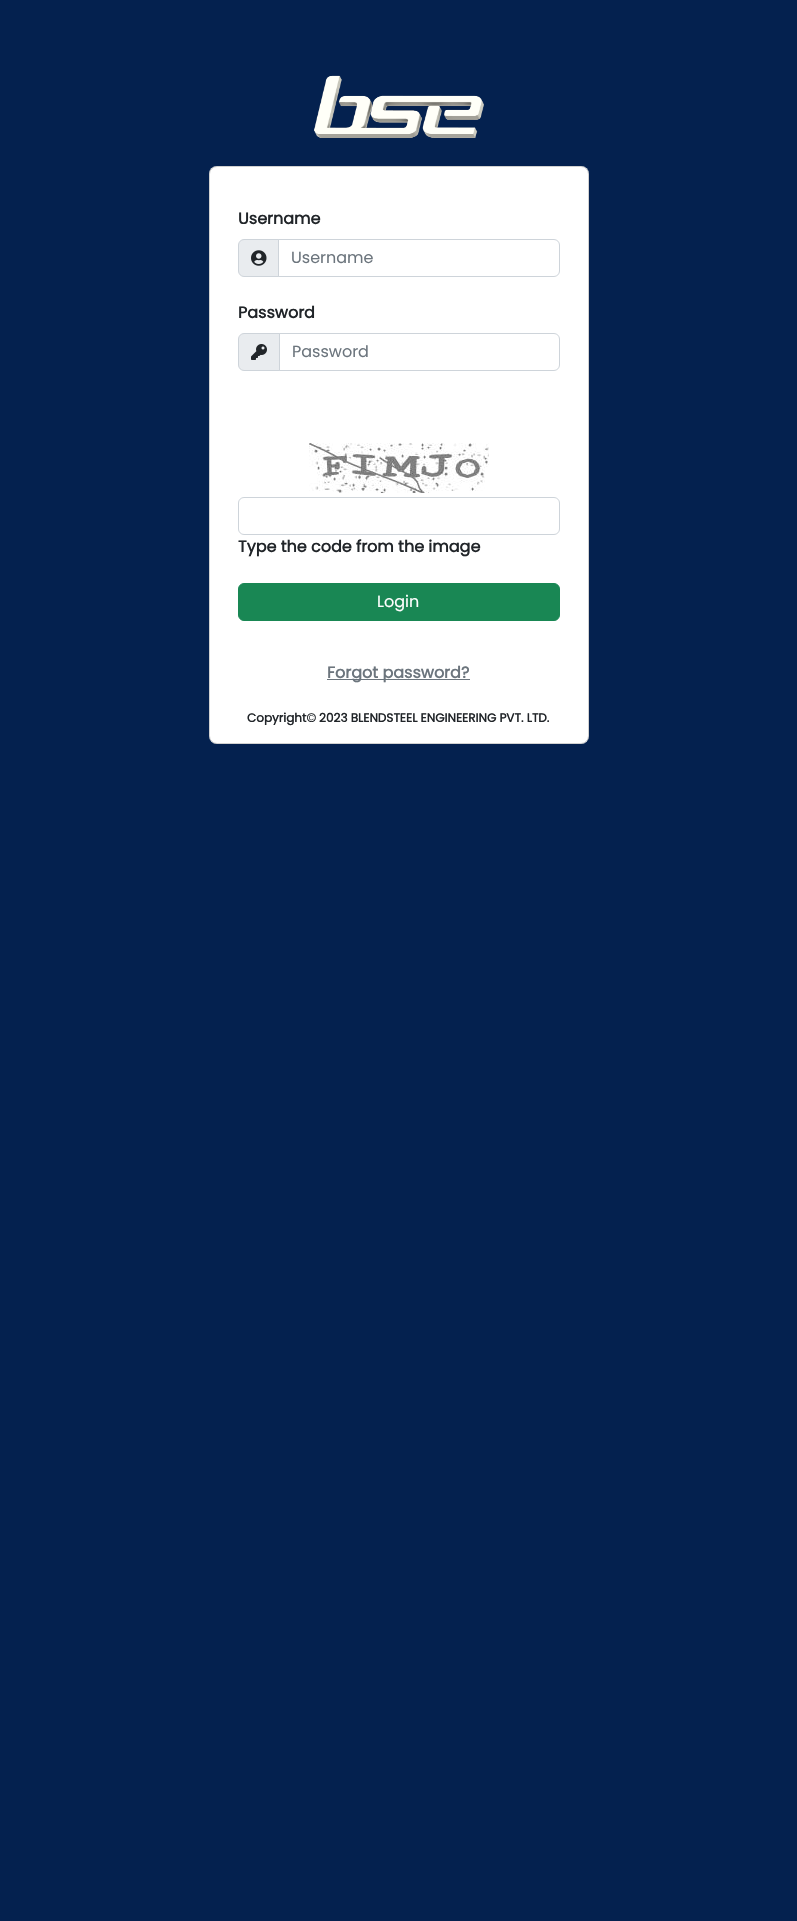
static SkFont makeFont(const char* family, int weight, float size, bool italic = false) {
  SkFontStyle style(weight, SkFontStyle::kNormal_Width,
    italic ? SkFontStyle::kItalic_Slant : SkFontStyle::kUpright_Slant);
  SkFont result(fontMgr->matchFamilyStyle(family, style), size);
  result.setSubpixel(true);
  return result;
}

static void text(SkCanvas* c, const char* s, float x, float y, const SkFont& font, SkColor color) {
  SkPaint ink(SkColor4f::FromColor(color));
  ink.setAntiAlias(true);
  c->drawString(s, x, y, font, ink);
}

static void box(SkCanvas* c, float l, float t, float r, float b, SkColor color) {
  SkPaint ink(SkColor4f::FromColor(color));
  ink.setAntiAlias(true);
  c->drawRect(SkRect::MakeLTRB(l, t, r, b), ink);
}

static void roundBox(SkCanvas* c, float l, float t, float r, float b, float radius, SkColor color) {
  SkPaint ink(SkColor4f::FromColor(color));
  ink.setAntiAlias(true);
  c->drawRoundRect(SkRect::MakeLTRB(l, t, r, b), radius, radius, ink);
}

static void picture(SkCanvas* c, const char* path, float l, float t, float r, float b) {
  auto image = SkImages::DeferredFromEncodedData(SkData::MakeFromFileName(path));
  c->drawImageRect(image, SkRect::MakeLTRB(l, t, r, b), SkSamplingOptions());
}

void draw(SkCanvas* c) {
  SkPaint paint;
  paint.setAntiAlias(true);
  c->clear(0xff04214f);
  picture(c, "img_01.png", 314, 75, 484, 138);
  roundBox(c, 209, 166, 589, 744, 8, 0xffffffff);
  paint.setStyle(SkPaint::kStroke_Style);
  paint.setStrokeWidth(1);
  paint.setColor(0x2e000000);
  c->drawRoundRect(SkRect::MakeLTRB(209.5f, 166.5f, 588.5f, 743.5f), 7.5f, 7.5f, paint);
  SkFont face1 = makeFont("Poppins", 700, 16);
  text(c, "Username", 238, 224, face1, 0xff212529);
  paint.setStyle(SkPaint::kFill_Style);
  paint.setColor(0xffe9ecef);
  c->drawPath(SkPathBuilder().moveTo(244, 239.5f).lineTo(278.5f, 239.5f).lineTo(278.5f, 276.5f).lineTo(244, 276.5f).cubicTo(241, 276.5f, 238.5f, 274, 238.5f, 271).lineTo(238.5f, 245).cubicTo(238.5f, 242, 241, 239.5f, 244, 239.5f).close().detach(), paint);
  paint.setStyle(SkPaint::kStroke_Style);
  paint.setColor(0xffced4da);
  c->drawPath(SkPathBuilder().moveTo(244, 239.5f).lineTo(278.5f, 239.5f).lineTo(278.5f, 276.5f).lineTo(244, 276.5f).cubicTo(241, 276.5f, 238.5f, 274, 238.5f, 271).lineTo(238.5f, 245).cubicTo(238.5f, 242, 241, 239.5f, 244, 239.5f).close().detach(), paint);
  picture(c, "img_02.png", 251, 250, 267, 266);
  c->drawPath(SkPathBuilder().moveTo(278.5f, 239.5f).lineTo(554, 239.5f).cubicTo(557, 239.5f, 559.5f, 242, 559.5f, 245).lineTo(559.5f, 271).cubicTo(559.5f, 274, 557, 276.5f, 554, 276.5f).lineTo(278.5f, 276.5f).close().detach(), paint);
  SkFont face2 = makeFont("Poppins", 400, 16);
  text(c, "Username", 291, 263, face2, 0xff6c757d);
  text(c, "Password", 238, 318, face1, 0xff212529);
  paint.setStyle(SkPaint::kFill_Style);
  paint.setColor(0xffe9ecef);
  c->drawPath(SkPathBuilder().moveTo(244, 333.5f).lineTo(279.5f, 333.5f).lineTo(279.5f, 370.5f).lineTo(244, 370.5f).cubicTo(241, 370.5f, 238.5f, 368, 238.5f, 365).lineTo(238.5f, 339).cubicTo(238.5f, 336, 241, 333.5f, 244, 333.5f).close().detach(), paint);
  paint.setStyle(SkPaint::kStroke_Style);
  paint.setColor(0xffced4da);
  c->drawPath(SkPathBuilder().moveTo(244, 333.5f).lineTo(279.5f, 333.5f).lineTo(279.5f, 370.5f).lineTo(244, 370.5f).cubicTo(241, 370.5f, 238.5f, 368, 238.5f, 365).lineTo(238.5f, 339).cubicTo(238.5f, 336, 241, 333.5f, 244, 333.5f).close().detach(), paint);
  picture(c, "img_03.png", 251, 344, 267, 360);
  c->drawPath(SkPathBuilder().moveTo(279.5f, 333.5f).lineTo(554, 333.5f).cubicTo(557, 333.5f, 559.5f, 336, 559.5f, 339).lineTo(559.5f, 365).cubicTo(559.5f, 368, 557, 370.5f, 554, 370.5f).lineTo(279.5f, 370.5f).close().detach(), paint);
  text(c, "Password", 292, 357, face2, 0xff6c757d);
  picture(c, "img_04.png", 309, 443, 489, 493);
  c->drawRoundRect(SkRect::MakeLTRB(238.5f, 497.5f, 559.5f, 534.5f), 5.5f, 5.5f, paint);
  text(c, "Type the code from the image", 238, 552, face1, 0xff212529);
  paint.setStyle(SkPaint::kFill_Style);
  paint.setColor(0xff198754);
  c->drawRoundRect(SkRect::MakeLTRB(238.5f, 583.5f, 559.5f, 620.5f), 5.5f, 5.5f, paint);
  paint.setStyle(SkPaint::kStroke_Style);
  c->drawRoundRect(SkRect::MakeLTRB(238.5f, 583.5f, 559.5f, 620.5f), 5.5f, 5.5f, paint);
  text(c, "Login", 377, 607, face2, 0xffffffff);
  box(c, 327, 679, 470, 680, 0xff6c757d);
  text(c, "Forgot password?", 327, 678, face1, 0xff6c757d);
  SkFont face3 = makeFont("Poppins", 700, 12);
  text(c, "Copyright© 2023 BLENDSTEEL ENGINEERING PVT. LTD.", 247, 722, face3, 0xff212529);
}
